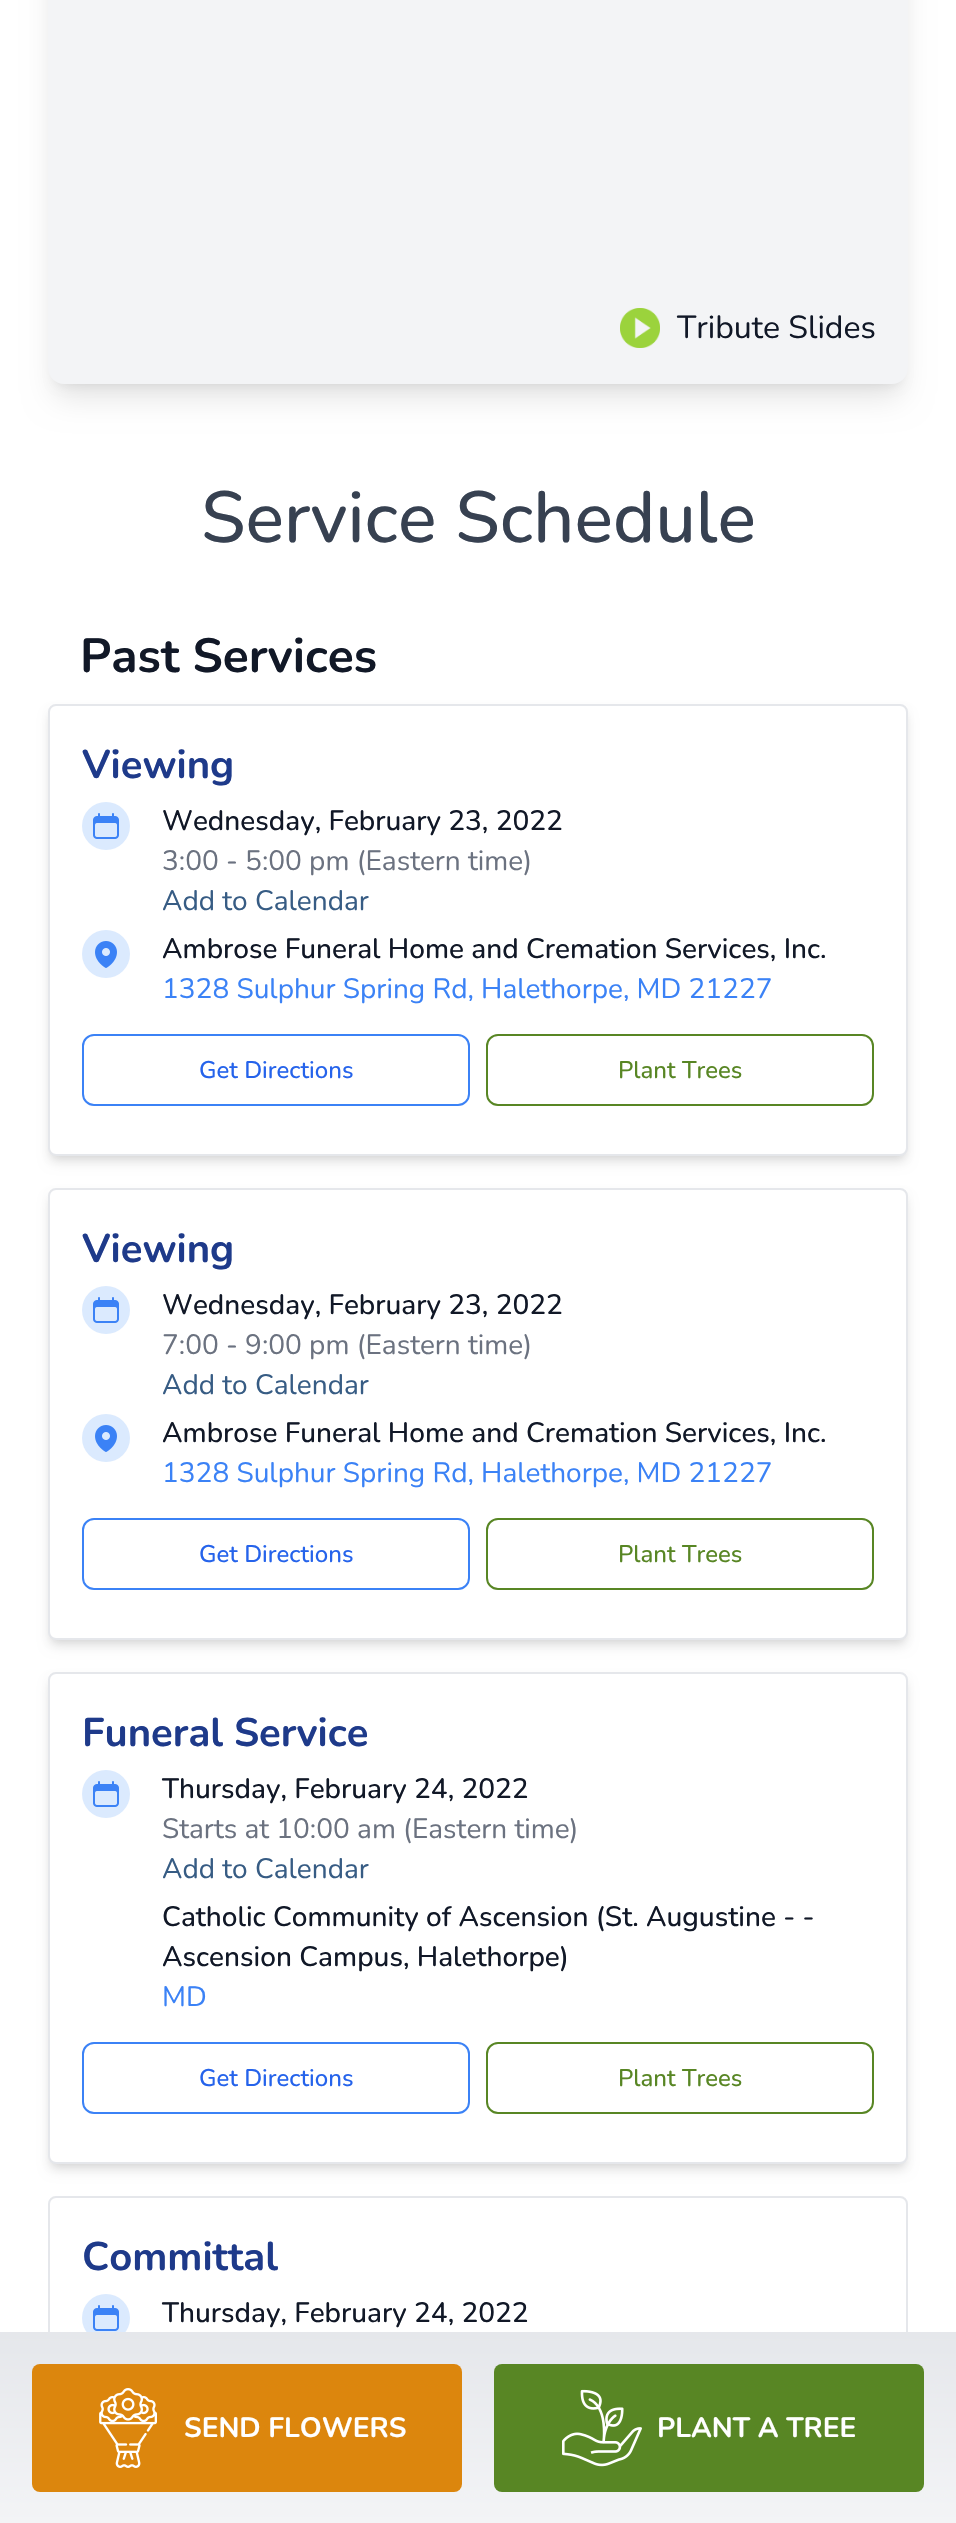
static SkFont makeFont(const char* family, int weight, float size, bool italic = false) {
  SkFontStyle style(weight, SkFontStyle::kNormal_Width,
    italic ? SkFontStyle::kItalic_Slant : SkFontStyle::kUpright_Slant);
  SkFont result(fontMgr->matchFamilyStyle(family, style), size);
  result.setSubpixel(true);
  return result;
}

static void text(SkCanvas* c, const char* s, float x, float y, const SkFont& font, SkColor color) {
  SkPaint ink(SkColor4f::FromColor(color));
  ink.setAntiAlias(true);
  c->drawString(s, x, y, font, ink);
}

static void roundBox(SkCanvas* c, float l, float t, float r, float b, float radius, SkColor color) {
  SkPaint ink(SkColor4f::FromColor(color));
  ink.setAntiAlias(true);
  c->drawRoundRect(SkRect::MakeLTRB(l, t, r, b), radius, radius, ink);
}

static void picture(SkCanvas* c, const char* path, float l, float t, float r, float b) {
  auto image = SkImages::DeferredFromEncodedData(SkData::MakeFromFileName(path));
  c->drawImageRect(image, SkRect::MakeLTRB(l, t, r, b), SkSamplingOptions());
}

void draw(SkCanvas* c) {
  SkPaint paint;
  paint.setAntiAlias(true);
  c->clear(0xffffffff);
  paint.setColor(0x1a000000);
  paint.setMaskFilter(SkMaskFilter::MakeBlur(kNormal_SkBlurStyle, 6));
  c->drawRoundRect(SkRect::MakeLTRB(56, -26, 900, 384), 8, 8, paint);
  paint.setMaskFilter(nullptr);
  paint.setMaskFilter(SkMaskFilter::MakeBlur(kNormal_SkBlurStyle, 15));
  c->drawRoundRect(SkRect::MakeLTRB(54, -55, 902, 398), 10, 10, paint);
  paint.setMaskFilter(nullptr);
  roundBox(c, 48, -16, 908, 384, 16, 0xfff3f4f6);
  picture(c, "img_01.png", 620, 308, 660, 348);
  SkFont face1 = makeFont("Nunito", 400, 32);
  text(c, "Tribute Slides", 677, 338, face1, 0xff111827);
  SkFont face2 = makeFont("Nunito", 500, 72);
  text(c, "Service Schedule", 201, 542, face2, 0xff374151);
  SkFont face3 = makeFont("Nunito", 700, 48);
  text(c, "Past Services", 80, 672, face3, 0xff111827);
  paint.setMaskFilter(SkMaskFilter::MakeBlur(kNormal_SkBlurStyle, 4));
  c->drawRoundRect(SkRect::MakeLTRB(52, 712, 904, 1156), 4, 4, paint);
  paint.setMaskFilter(nullptr);
  paint.setMaskFilter(SkMaskFilter::MakeBlur(kNormal_SkBlurStyle, 6));
  c->drawRoundRect(SkRect::MakeLTRB(50, 714, 906, 1162), 6, 6, paint);
  paint.setMaskFilter(nullptr);
  paint.setColor(0xffffffff);
  c->drawRoundRect(SkRect::MakeLTRB(49, 705, 907, 1155), 7, 7, paint);
  paint.setStyle(SkPaint::kStroke_Style);
  paint.setStrokeWidth(2);
  paint.setColor(0xffe5e7eb);
  c->drawRoundRect(SkRect::MakeLTRB(49, 705, 907, 1155), 7, 7, paint);
  SkFont face4 = makeFont("Nunito", 700, 40);
  text(c, "Viewing", 82, 778, face4, 0xff1e3a8a);
  paint.setStyle(SkPaint::kFill_Style);
  paint.setColor(0xffdbeafe);
  c->drawCircle(106, 826, 24, paint);
  picture(c, "img_02.png", 93, 813, 119, 839);
  SkFont face5 = makeFont("Nunito", 500, 28);
  text(c, "Wednesday, February 23, 2022", 162, 830, face5, 0xff111827);
  SkFont face6 = makeFont("Nunito", 400, 28);
  text(c, "3:00 - 5:00 pm (Eastern time)", 162, 870, face6, 0xff6b7280);
  text(c, "Add to Calendar", 162, 910, face6, 0xff375c84);
  c->drawCircle(106, 954, 24, paint);
  picture(c, "img_03.png", 95, 941, 117, 968);
  text(c, "Ambrose Funeral Home and Cremation Services, Inc.", 162, 958, face5, 0xff111827);
  text(c, "1328 Sulphur Spring Rd, Halethorpe, MD 21227", 162, 998, face6, 0xff3b82f6);
  paint.setStyle(SkPaint::kStroke_Style);
  paint.setColor(0xff3b82f6);
  c->drawRoundRect(SkRect::MakeLTRB(83, 1035, 469, 1105), 11, 11, paint);
  SkFont face7 = makeFont("Nunito", 500, 24);
  text(c, "Get Directions", 199, 1078, face7, 0xff2563eb);
  paint.setColor(0xff588624);
  c->drawRoundRect(SkRect::MakeLTRB(487, 1035, 873, 1105), 11, 11, paint);
  text(c, "Plant Trees", 618, 1078, face7, 0xff588624);
  paint.setStyle(SkPaint::kFill_Style);
  paint.setColor(0x1a000000);
  paint.setMaskFilter(SkMaskFilter::MakeBlur(kNormal_SkBlurStyle, 4));
  c->drawRoundRect(SkRect::MakeLTRB(52, 1196, 904, 1640), 4, 4, paint);
  paint.setMaskFilter(nullptr);
  paint.setMaskFilter(SkMaskFilter::MakeBlur(kNormal_SkBlurStyle, 6));
  c->drawRoundRect(SkRect::MakeLTRB(50, 1198, 906, 1646), 6, 6, paint);
  paint.setMaskFilter(nullptr);
  paint.setColor(0xffffffff);
  c->drawRoundRect(SkRect::MakeLTRB(49, 1189, 907, 1639), 7, 7, paint);
  paint.setStyle(SkPaint::kStroke_Style);
  paint.setColor(0xffe5e7eb);
  c->drawRoundRect(SkRect::MakeLTRB(49, 1189, 907, 1639), 7, 7, paint);
  text(c, "Viewing", 82, 1262, face4, 0xff1e3a8a);
  paint.setStyle(SkPaint::kFill_Style);
  paint.setColor(0xffdbeafe);
  c->drawCircle(106, 1310, 24, paint);
  picture(c, "img_02.png", 93, 1297, 119, 1323);
  text(c, "Wednesday, February 23, 2022", 162, 1314, face5, 0xff111827);
  text(c, "7:00 - 9:00 pm (Eastern time)", 162, 1354, face6, 0xff6b7280);
  text(c, "Add to Calendar", 162, 1394, face6, 0xff375c84);
  c->drawCircle(106, 1438, 24, paint);
  picture(c, "img_03.png", 95, 1425, 117, 1452);
  text(c, "Ambrose Funeral Home and Cremation Services, Inc.", 162, 1442, face5, 0xff111827);
  text(c, "1328 Sulphur Spring Rd, Halethorpe, MD 21227", 162, 1482, face6, 0xff3b82f6);
  paint.setStyle(SkPaint::kStroke_Style);
  paint.setColor(0xff3b82f6);
  c->drawRoundRect(SkRect::MakeLTRB(83, 1519, 469, 1589), 11, 11, paint);
  text(c, "Get Directions", 199, 1562, face7, 0xff2563eb);
  paint.setColor(0xff588624);
  c->drawRoundRect(SkRect::MakeLTRB(487, 1519, 873, 1589), 11, 11, paint);
  text(c, "Plant Trees", 618, 1562, face7, 0xff588624);
  paint.setStyle(SkPaint::kFill_Style);
  paint.setColor(0x1a000000);
  paint.setMaskFilter(SkMaskFilter::MakeBlur(kNormal_SkBlurStyle, 4));
  c->drawRoundRect(SkRect::MakeLTRB(52, 1680, 904, 2164), 4, 4, paint);
  paint.setMaskFilter(nullptr);
  paint.setMaskFilter(SkMaskFilter::MakeBlur(kNormal_SkBlurStyle, 6));
  c->drawRoundRect(SkRect::MakeLTRB(50, 1682, 906, 2170), 6, 6, paint);
  paint.setMaskFilter(nullptr);
  paint.setColor(0xffffffff);
  c->drawRoundRect(SkRect::MakeLTRB(49, 1673, 907, 2163), 7, 7, paint);
  paint.setStyle(SkPaint::kStroke_Style);
  paint.setColor(0xffe5e7eb);
  c->drawRoundRect(SkRect::MakeLTRB(49, 1673, 907, 2163), 7, 7, paint);
  text(c, "Funeral Service", 82, 1746, face4, 0xff1e3a8a);
  paint.setStyle(SkPaint::kFill_Style);
  paint.setColor(0xffdbeafe);
  c->drawCircle(106, 1794, 24, paint);
  picture(c, "img_02.png", 93, 1781, 119, 1807);
  text(c, "Thursday, February 24, 2022", 162, 1798, face5, 0xff111827);
  text(c, "Starts at 10:00 am (Eastern time)", 162, 1838, face6, 0xff6b7280);
  text(c, "Add to Calendar", 162, 1878, face6, 0xff375c84);
  text(c, "Catholic Community of Ascension (St. Augustine - -", 162, 1926, face5, 0xff111827);
  text(c, "Ascension Campus, Halethorpe)", 162, 1966, face5, 0xff111827);
  text(c, "MD", 162, 2006, face6, 0xff3b82f6);
  paint.setStyle(SkPaint::kStroke_Style);
  paint.setColor(0xff3b82f6);
  c->drawRoundRect(SkRect::MakeLTRB(83, 2043, 469, 2113), 11, 11, paint);
  text(c, "Get Directions", 199, 2086, face7, 0xff2563eb);
  paint.setColor(0xff588624);
  c->drawRoundRect(SkRect::MakeLTRB(487, 2043, 873, 2113), 11, 11, paint);
  text(c, "Plant Trees", 618, 2086, face7, 0xff588624);
  paint.setColor(0xffe5e7eb);
  c->drawRoundRect(SkRect::MakeLTRB(49, 2197, 907, 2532), 7, 7, paint);
  text(c, "Committal", 82, 2270, face4, 0xff1e3a8a);
  paint.setStyle(SkPaint::kFill_Style);
  paint.setColor(0xffdbeafe);
  c->drawCircle(106, 2318, 24, paint);
  picture(c, "img_02.png", 93, 2305, 119, 2331);
  text(c, "Thursday, February 24, 2022", 162, 2322, face5, 0xff111827);
  {
    const SkColor colors[] = {0xffe5e7eb, 0xfff3f4f6};
    const float stops[] = {0, 1};
    const SkPoint ends[] = {{478, 2332}, {478, 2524}};
    paint.setShader(SkGradientShader::MakeLinear(ends, colors, stops, 2, SkTileMode::kClamp));
    paint.setAlpha(255);
  }
  c->drawRect(SkRect::MakeLTRB(0, 2332, 956, 2523), paint);
  roundBox(c, 32, 2364, 462, 2492, 8, 0xffdc860d);
  picture(c, "img_04.png", 99, 2388, 157, 2468);
  SkFont face8 = makeFont("Nunito", 700, 28);
  text(c, "SEND FLOWERS", 184, 2437, face8, 0xffffffff);
  roundBox(c, 494, 2364, 924, 2492, 8, 0xff588624);
  picture(c, "img_05.png", 562, 2389, 642, 2467);
  text(c, "PLANT A TREE", 657, 2437, face8, 0xffffffff);
}
